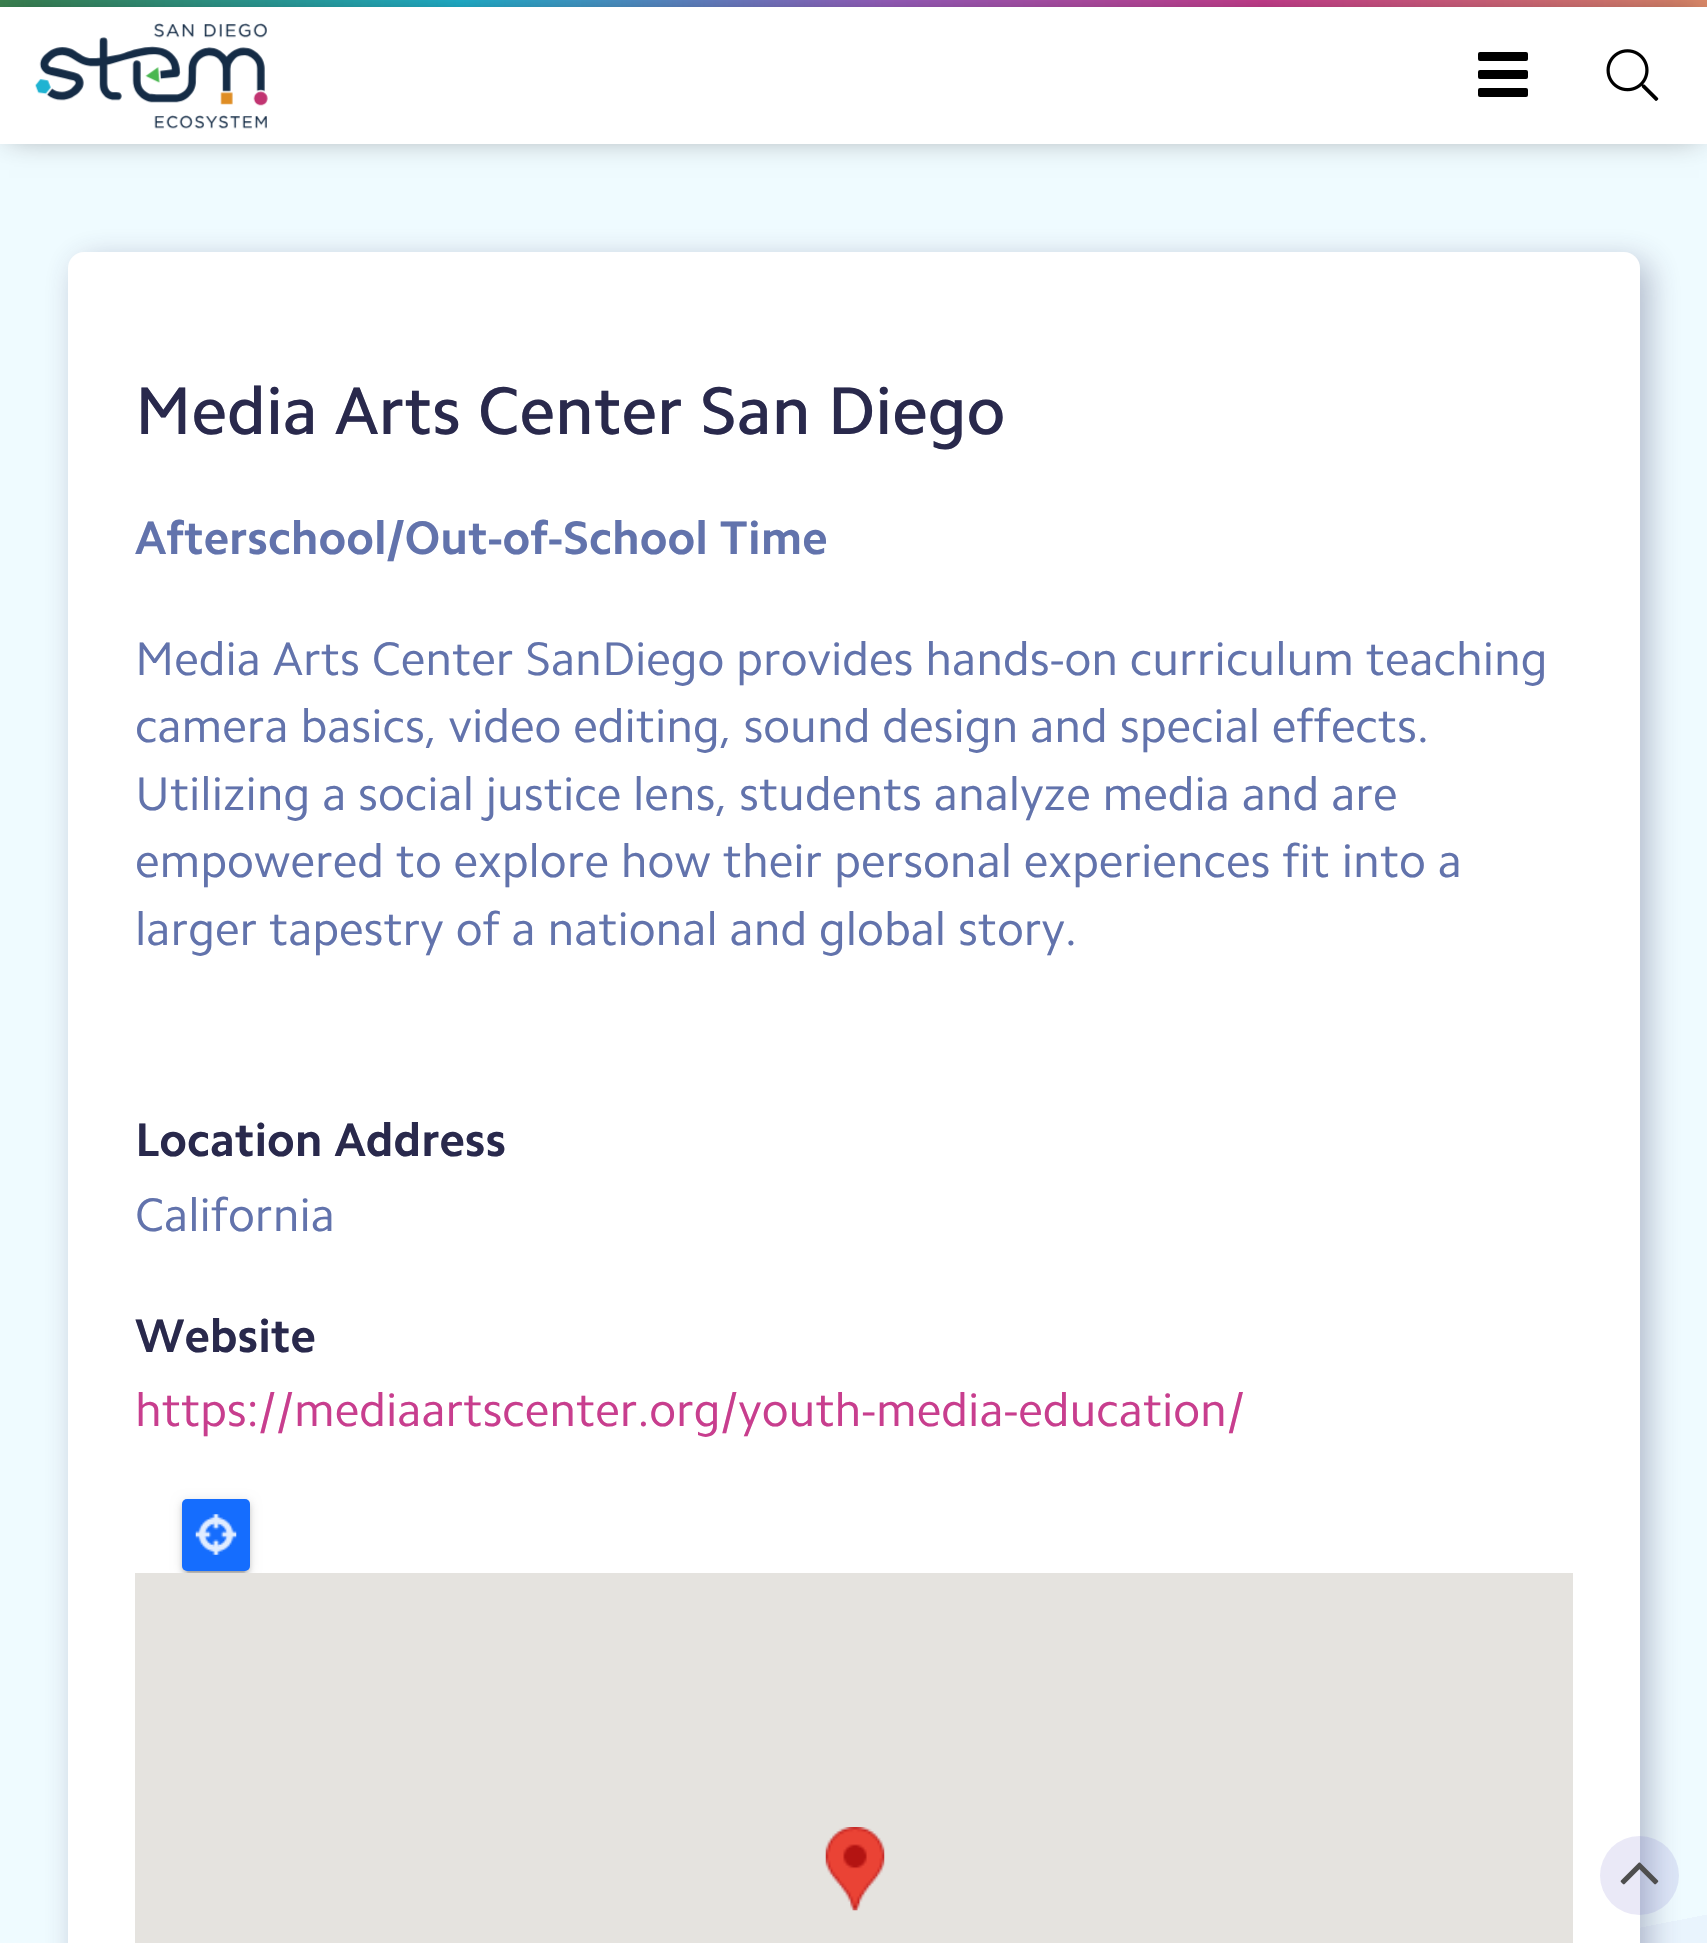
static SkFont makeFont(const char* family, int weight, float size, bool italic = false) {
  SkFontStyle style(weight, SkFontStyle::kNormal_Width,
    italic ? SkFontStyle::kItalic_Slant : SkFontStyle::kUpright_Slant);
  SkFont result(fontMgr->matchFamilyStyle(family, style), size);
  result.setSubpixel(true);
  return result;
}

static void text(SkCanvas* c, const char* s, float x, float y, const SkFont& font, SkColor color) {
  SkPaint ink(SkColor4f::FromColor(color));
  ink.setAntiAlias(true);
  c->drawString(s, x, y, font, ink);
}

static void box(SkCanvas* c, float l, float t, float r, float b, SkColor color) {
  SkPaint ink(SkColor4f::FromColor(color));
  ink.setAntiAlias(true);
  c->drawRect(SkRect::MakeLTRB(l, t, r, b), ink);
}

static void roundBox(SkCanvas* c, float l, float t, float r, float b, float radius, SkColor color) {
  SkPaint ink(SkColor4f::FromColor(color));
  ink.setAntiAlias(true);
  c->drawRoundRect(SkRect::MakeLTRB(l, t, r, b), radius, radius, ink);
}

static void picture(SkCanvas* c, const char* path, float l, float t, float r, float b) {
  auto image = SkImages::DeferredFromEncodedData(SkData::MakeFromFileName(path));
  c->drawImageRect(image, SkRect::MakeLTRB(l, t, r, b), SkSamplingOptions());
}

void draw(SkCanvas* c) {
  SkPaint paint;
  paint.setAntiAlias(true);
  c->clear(0xffffffff);
  {
    const SkColor colors[] = {0xff3b814f, 0xff20b2ce, 0xff985ebe, 0xffc83e8e, 0xffdb8969};
    const float stops[] = {0, 0.27f, 0.52f, 0.74f, 1};
    const SkPoint ends[] = {{0, 3.4f}, {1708, 3.4f}};
    paint.setShader(SkGradientShader::MakeLinear(ends, colors, stops, 5, SkTileMode::kClamp));
    paint.setAlpha(255);
  }
  c->drawRect(SkRect::MakeLTRB(0, 0, 1707, 7), paint);
  {
    const SkColor colors[] = {0xffe9f4fd, 0xffeffbff};
    const float stops[] = {0.54f, 0.54f};
    const SkPoint ends[] = {{1319, 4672}, {389, -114}};
    paint.setShader(SkGradientShader::MakeLinear(ends, colors, stops, 2, SkTileMode::kClamp));
    paint.setAlpha(255);
  }
  c->drawRect(SkRect::MakeLTRB(0, 144, 1707, 1943), paint);
  paint.setShader(nullptr);
  paint.setColor(0x6e000000);
  paint.setMaskFilter(SkMaskFilter::MakeBlur(kNormal_SkBlurStyle, 14.5f));
  c->drawRect(SkRect::MakeLTRB(9, 16, 1699, 135), paint);
  paint.setMaskFilter(nullptr);
  box(c, 0, 7, 1707, 144, 0xffffffff);
  picture(c, "img_01.png", 35, 23, 268, 129);
  roundBox(c, 1478, 52, 1528, 61, 2, 0xff000000);
  roundBox(c, 1478, 70, 1528, 79, 2, 0xff000000);
  roundBox(c, 1478, 88, 1528, 97, 2, 0xff000000);
  picture(c, "img_02.png", 1606, 49, 1659, 101);
  paint.setColor(0x5432325d);
  paint.setMaskFilter(SkMaskFilter::MakeBlur(kNormal_SkBlurStyle, 16));
  c->drawRoundRect(SkRect::MakeLTRB(77, 261, 1649, 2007), 16, 16, paint);
  paint.setMaskFilter(nullptr);
  roundBox(c, 68, 252, 1640, 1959, 16, 0xffffffff);
  SkFont face1 = makeFont("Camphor", 500, 67.5f);
  text(c, "Media Arts Center San Diego", 135, 434, face1, 0xff29294c);
  SkFont face2 = makeFont("Camphor", 700, 47.25f);
  text(c, "Afterschool/Out-of-School Time", 135, 554, face2, 0xff6273ac);
  SkFont face3 = makeFont("Camphor", 400, 47.25f);
  text(c, "Media Arts Center SanDiego provides hands-on curriculum teaching", 135, 675, face3, 0xff6273ac);
  text(c, "camera basics, video editing, sound design and special effects.", 135, 742, face3, 0xff6273ac);
  text(c, "Utilizing a social justice lens, students analyze media and are", 135, 810, face3, 0xff6273ac);
  text(c, "empowered to explore how their personal experiences fit into a", 135, 877, face3, 0xff6273ac);
  text(c, "larger tapestry of a national and global story.", 135, 945, face3, 0xff6273ac);
  text(c, "Location Address", 135, 1156, face2, 0xff29294c);
  text(c, "California", 135, 1231, face3, 0xff6273ac);
  text(c, "Website", 135, 1352, face2, 0xff29294c);
  text(c, "https://mediaartscenter.org/youth-media-education/", 135, 1426, face3, 0xffc83e8e);
  paint.setColor(0x33000000);
  paint.setMaskFilter(SkMaskFilter::MakeBlur(kNormal_SkBlurStyle, 1));
  c->drawRect(SkRect::MakeLTRB(187, 1510, 245, 1573), paint);
  paint.setMaskFilter(nullptr);
  paint.setColor(0x1f000000);
  paint.setMaskFilter(SkMaskFilter::MakeBlur(kNormal_SkBlurStyle, 5.5f));
  c->drawRoundRect(SkRect::MakeLTRB(182, 1501, 250, 1573), 5, 5, paint);
  paint.setMaskFilter(nullptr);
  paint.setColor(0x24000000);
  paint.setMaskFilter(SkMaskFilter::MakeBlur(kNormal_SkBlurStyle, 2));
  c->drawRoundRect(SkRect::MakeLTRB(182, 1503, 250, 1575), 5, 5, paint);
  paint.setMaskFilter(nullptr);
  roundBox(c, 182, 1499, 250, 1571, 5, 0xff156dfe);
  picture(c, "img_03.png", 195, 1514, 237, 1555);
  box(c, 135, 1573, 1573, 1943, 0xffe5e3df);
  picture(c, "img_04.png", 825, 1827, 885, 1911);
  paint.setColor(0x246d63c4);
  c->drawCircle(1639.5f, 1875.5f, 39.5f, paint);
  picture(c, "img_05.png", 1620, 1862, 1659, 1885);
}
